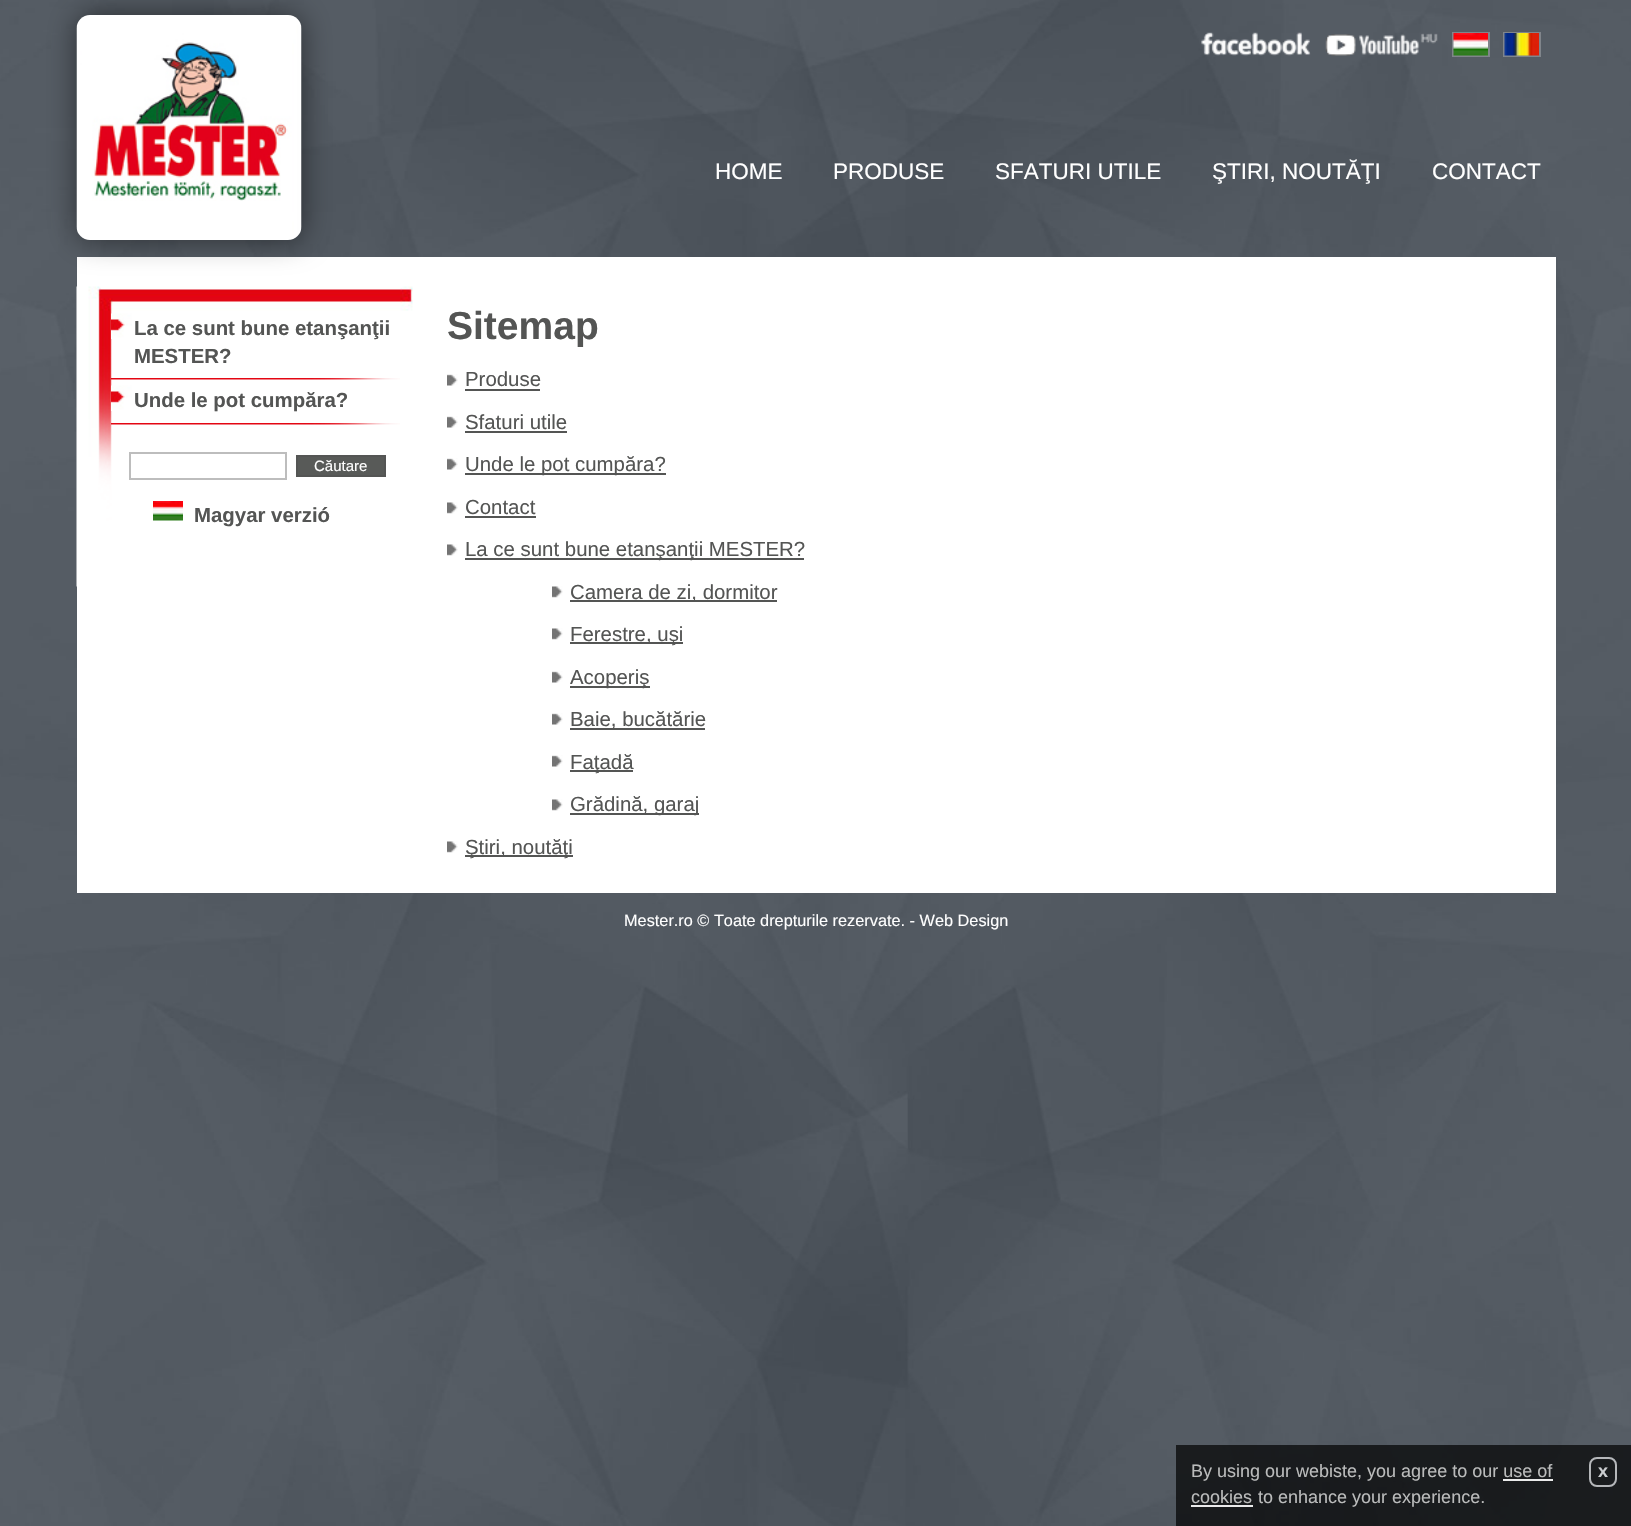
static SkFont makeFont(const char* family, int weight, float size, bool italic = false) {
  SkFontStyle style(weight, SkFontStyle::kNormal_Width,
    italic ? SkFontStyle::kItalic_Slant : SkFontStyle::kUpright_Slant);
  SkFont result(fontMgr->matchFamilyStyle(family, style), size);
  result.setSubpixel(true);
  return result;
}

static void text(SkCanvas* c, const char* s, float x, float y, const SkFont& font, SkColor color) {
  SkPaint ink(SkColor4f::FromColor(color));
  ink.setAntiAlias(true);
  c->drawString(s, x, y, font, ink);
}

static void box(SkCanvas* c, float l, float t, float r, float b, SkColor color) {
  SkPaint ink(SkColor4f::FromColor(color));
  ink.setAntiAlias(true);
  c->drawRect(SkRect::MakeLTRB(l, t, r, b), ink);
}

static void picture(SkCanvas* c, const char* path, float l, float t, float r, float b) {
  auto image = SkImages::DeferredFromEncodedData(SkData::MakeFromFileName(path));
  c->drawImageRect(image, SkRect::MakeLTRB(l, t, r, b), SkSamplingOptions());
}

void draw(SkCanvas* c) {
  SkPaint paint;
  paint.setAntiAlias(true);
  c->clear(0xffffffff);
  picture(c, "img_01.png", 0, 0, 1631, 1526);
  box(c, 77, 257, 1556, 893, 0xffffffff);
  paint.setColor(0x80000000);
  paint.setMaskFilter(SkMaskFilter::MakeBlur(kNormal_SkBlurStyle, 15));
  c->drawRoundRect(SkRect::MakeLTRB(77, 15, 302, 240), 14, 14, paint);
  paint.setMaskFilter(nullptr);
  picture(c, "img_02.png", 76, 15, 302, 240);
  picture(c, "img_03.png", 1201, 32, 1311, 56);
  picture(c, "img_04.png", 1325, 33, 1438, 56);
  paint.setStyle(SkPaint::kStroke_Style);
  paint.setStrokeWidth(2);
  paint.setColor(0xff80858b);
  c->drawRect(SkRect::MakeLTRB(1453, 33, 1489, 56), paint);
  c->drawRect(SkRect::MakeLTRB(1504, 33, 1540, 56), paint);
  picture(c, "img_05.png", 1453, 33, 1488, 56);
  picture(c, "img_06.png", 1504, 33, 1539, 56);
  SkFont face1 = makeFont("Liberation Sans", 400, 22.5f);
  text(c, "HOME", 715, 179, face1, 0xffffffff);
  text(c, "PRODUSE", 833, 179, face1, 0xffffffff);
  text(c, "SFATURI UTILE", 995, 179, face1, 0xffffffff);
  text(c, "ŞTIRI, NOUTĂŢI", 1212, 179, face1, 0xffffffff);
  text(c, "CONTACT", 1432, 179, face1, 0xffffffff);
  picture(c, "img_07.png", 76, 286, 413, 587);
  picture(c, "img_08.png", 111, 313, 132, 339);
  SkFont face2 = makeFont("Liberation Sans", 700, 20.4f);
  text(c, "La ce sunt bune etanşanţii", 134, 335, face2, 0xff545554);
  text(c, "MESTER?", 134, 363, face2, 0xff545554);
  picture(c, "img_09.png", 111, 378, 400, 380);
  picture(c, "img_10.png", 111, 385, 132, 411);
  text(c, "Unde le pot cumpăra?", 134, 407, face2, 0xff545554);
  picture(c, "img_11.png", 111, 423, 400, 425);
  paint.setColor(0xffbdbdbd);
  c->drawRect(SkRect::MakeLTRB(130, 453, 286, 479), paint);
  paint.setStyle(SkPaint::kFill_Style);
  paint.setColor(0xff585a58);
  c->drawRect(SkRect::MakeLTRB(297, 456, 385, 476), paint);
  paint.setStyle(SkPaint::kStroke_Style);
  paint.setColor(0xff545554);
  c->drawRect(SkRect::MakeLTRB(297, 456, 385, 476), paint);
  SkFont face3 = makeFont("Liberation Sans", 400, 15);
  text(c, "Căutare", 314, 471, face3, 0xffffffff);
  picture(c, "img_12.png", 153, 501, 183, 521);
  text(c, "Magyar verzió", 194, 522, face2, 0xff545554);
  SkFont face4 = makeFont("Liberation Sans", 700, 39);
  text(c, "Sitemap", 447, 339, face4, 0xff545554);
  picture(c, "img_13.png", 447, 374, 458, 386);
  SkFont face5 = makeFont("Liberation Sans", 400, 20.4f);
  text(c, "Produse", 465, 386, face5, 0xff545554);
  box(c, 465, 389, 540, 391, 0xff545554);
  picture(c, "img_13.png", 447, 416, 458, 428);
  text(c, "Sfaturi utile", 465, 429, face5, 0xff545554);
  box(c, 465, 431, 567, 433, 0xff545554);
  picture(c, "img_13.png", 447, 458, 458, 470);
  box(c, 465, 473, 666, 475, 0xff545554);
  text(c, "Unde le pot cumpăra?", 465, 471, face5, 0xff545554);
  picture(c, "img_14.png", 447, 502, 458, 514);
  text(c, "Contact", 465, 514, face5, 0xff545554);
  box(c, 465, 516, 536, 518, 0xff545554);
  picture(c, "img_14.png", 447, 544, 458, 556);
  box(c, 465, 558, 804, 560, 0xff545554);
  text(c, "La ce sunt bune etanşanţii MESTER?", 465, 556, face5, 0xff545554);
  picture(c, "img_15.png", 552, 586, 563, 598);
  box(c, 570, 600, 777, 602, 0xff545554);
  text(c, "Camera de zi, dormitor", 570, 599, face5, 0xff545554);
  picture(c, "img_15.png", 552, 628, 563, 640);
  box(c, 570, 642, 683, 644, 0xff545554);
  text(c, "Ferestre, uşi", 570, 641, face5, 0xff545554);
  picture(c, "img_16.png", 552, 671, 563, 683);
  box(c, 570, 686, 650, 688, 0xff545554);
  text(c, "Acoperiş", 570, 684, face5, 0xff545554);
  picture(c, "img_16.png", 552, 713, 563, 725);
  box(c, 570, 728, 705, 730, 0xff545554);
  text(c, "Baie, bucătărie", 570, 726, face5, 0xff545554);
  picture(c, "img_16.png", 552, 755, 563, 767);
  box(c, 570, 770, 633, 772, 0xff545554);
  text(c, "Faţadă", 570, 769, face5, 0xff545554);
  picture(c, "img_15.png", 552, 799, 563, 811);
  box(c, 570, 813, 699, 815, 0xff545554);
  text(c, "Grădină, garaj", 570, 811, face5, 0xff545554);
  picture(c, "img_14.png", 447, 841, 458, 853);
  box(c, 465, 855, 573, 857, 0xff545554);
  text(c, "Ştiri, noutăţi", 465, 854, face5, 0xff545554);
  SkFont face6 = makeFont("Liberation Sans", 400, 16.3f);
  text(c, "Mester.ro © Toate drepturile rezervate. - Web Design", 624, 926, face6, 0xffffffff);
  box(c, 1176, 1445, 1631, 1526, 0xb3000000);
  SkFont face7 = makeFont("Liberation Sans", 400, 18);
  text(c, "By using our webiste, you agree to our use of", 1191, 1477, face7, 0xffbabbbb);
  text(c, "cookies", 1191, 1503, face7, 0xffbabbbb);
  box(c, 1503, 1479, 1553, 1481, 0xffeaebeb);
  box(c, 1191, 1505, 1253, 1507, 0xffeaeaeb);
  text(c, "to enhance your experience.", 1258, 1503, face7, 0xffbabbbb);
  paint.setColor(0xffb5b7ba);
  c->drawRoundRect(SkRect::MakeLTRB(1590, 1458, 1616, 1486), 7, 7, paint);
  SkFont face8 = makeFont("Liberation Sans", 700, 18);
  text(c, "x", 1598, 1477, face8, 0xffccced1);
}
